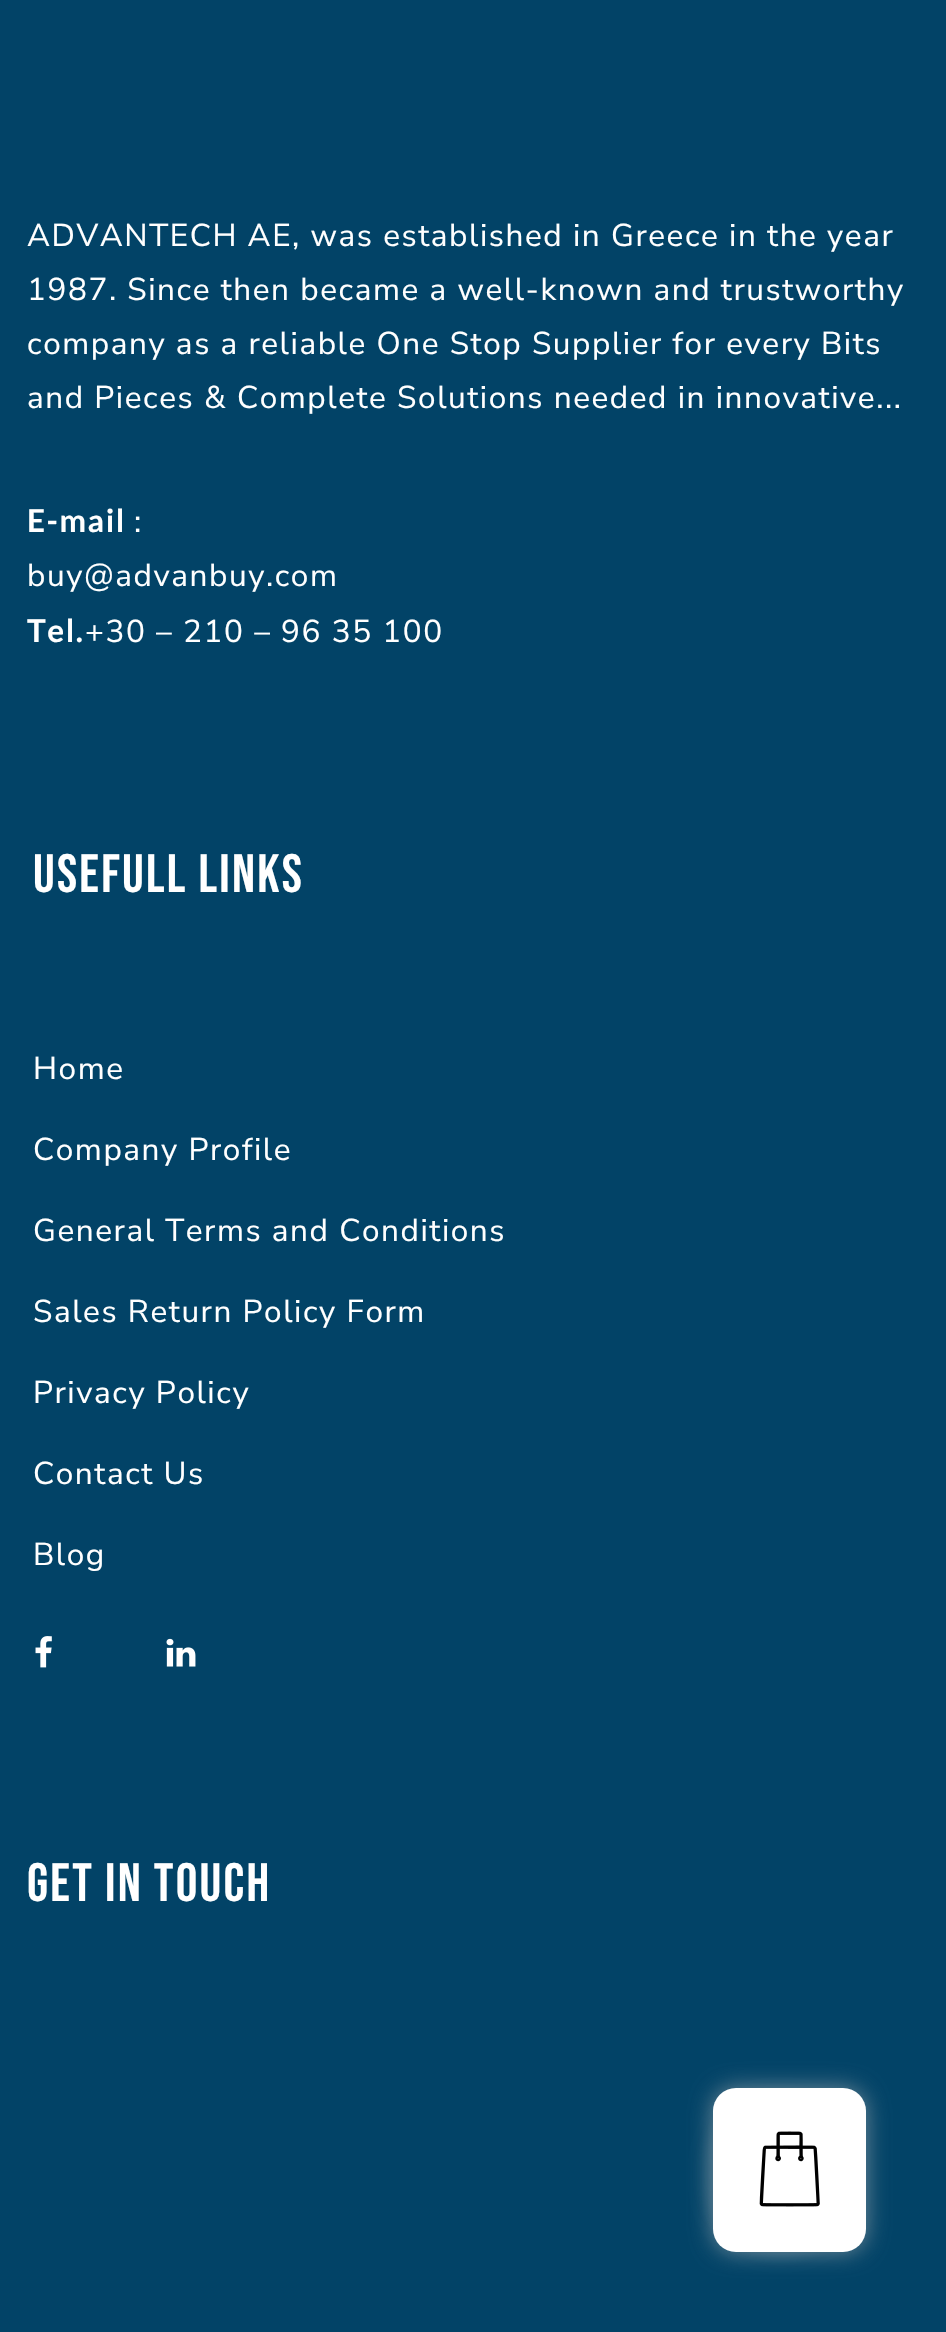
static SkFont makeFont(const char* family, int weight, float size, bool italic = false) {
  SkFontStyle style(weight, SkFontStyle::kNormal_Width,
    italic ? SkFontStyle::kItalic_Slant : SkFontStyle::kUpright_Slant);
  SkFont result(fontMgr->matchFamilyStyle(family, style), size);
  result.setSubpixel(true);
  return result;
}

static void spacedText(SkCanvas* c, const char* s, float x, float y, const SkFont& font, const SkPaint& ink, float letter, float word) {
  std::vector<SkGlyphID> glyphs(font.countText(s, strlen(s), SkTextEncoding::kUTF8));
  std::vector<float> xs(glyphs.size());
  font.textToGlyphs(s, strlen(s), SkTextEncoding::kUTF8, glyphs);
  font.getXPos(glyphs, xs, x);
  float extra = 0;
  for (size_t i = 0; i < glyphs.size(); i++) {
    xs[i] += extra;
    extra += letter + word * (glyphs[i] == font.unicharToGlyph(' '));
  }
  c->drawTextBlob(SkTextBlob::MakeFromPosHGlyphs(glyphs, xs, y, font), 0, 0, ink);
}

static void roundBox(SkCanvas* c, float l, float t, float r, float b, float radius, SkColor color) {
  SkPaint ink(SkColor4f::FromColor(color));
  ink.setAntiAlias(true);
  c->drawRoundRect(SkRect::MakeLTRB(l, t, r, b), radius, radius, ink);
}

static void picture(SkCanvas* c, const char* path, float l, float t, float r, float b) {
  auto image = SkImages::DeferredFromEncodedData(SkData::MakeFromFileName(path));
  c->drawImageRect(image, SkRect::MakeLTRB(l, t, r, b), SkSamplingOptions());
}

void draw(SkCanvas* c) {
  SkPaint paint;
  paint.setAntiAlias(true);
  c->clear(0xff024367);
  SkFont face1 = makeFont("Nunito Sans", 400, 31.5f);
  paint.setColor(0xffffffff);
  spacedText(c, "ADVANTECH AE, was established in Greece in the year", 27, 246, face1, paint, 1.57f, 0);
  spacedText(c, "1987. Since then became a well-known and trustworthy", 27, 300, face1, paint, 1.57f, 0);
  spacedText(c, "company as a reliable One Stop Supplier for every Bits", 27, 354, face1, paint, 1.57f, 0);
  spacedText(c, "and Pieces & Complete Solutions needed in innovative...", 27, 408, face1, paint, 1.57f, 0);
  SkFont face2 = makeFont("Lato", 700, 31.5f);
  spacedText(c, "E-mail", 27, 532, face2, paint, 1.57f, 0);
  spacedText(c, ":", 134, 532, face1, paint, 1.57f, 0);
  spacedText(c, "buy@advanbuy.com", 27, 586, face1, paint, 1.57f, 0);
  spacedText(c, "Tel.", 27, 642, face2, paint, 1.57f, 0);
  spacedText(c, "+30 – 210 – 96 35 100", 85, 642, face1, paint, 1.57f, 0);
  SkFont face3 = makeFont("Bebas Neue", 400, 54);
  spacedText(c, "Usefull Links", 33, 892, face3, paint, 2.25f, 0);
  spacedText(c, "Home", 33, 1079, face1, paint, 1.57f, 0);
  spacedText(c, "Company Profile", 33, 1160, face1, paint, 1.57f, 0);
  spacedText(c, "General Terms and Conditions", 33, 1241, face1, paint, 1.57f, 0);
  spacedText(c, "Sales Return Policy Form", 33, 1322, face1, paint, 1.57f, 0);
  spacedText(c, "Privacy Policy", 33, 1403, face1, paint, 1.57f, 0);
  spacedText(c, "Contact Us", 33, 1484, face1, paint, 1.57f, 0);
  spacedText(c, "Blog", 33, 1565, face1, paint, 1.57f, 0);
  picture(c, "img_01.png", 35, 1636, 52, 1668);
  picture(c, "img_02.png", 166, 1638, 196, 1667);
  spacedText(c, "Get In Touch", 27, 1901, face3, paint, 2.25f, 0);
  paint.setColor(0x1adddddd);
  paint.setMaskFilter(SkMaskFilter::MakeBlur(kNormal_SkBlurStyle, 7));
  c->drawRoundRect(SkRect::MakeLTRB(704, 2093, 857, 2257), 76.5f, 76.5f, paint);
  paint.setMaskFilter(nullptr);
  paint.setColor(0x99b7b7b7);
  paint.setMaskFilter(SkMaskFilter::MakeBlur(kNormal_SkBlurStyle, 11));
  c->drawRoundRect(SkRect::MakeLTRB(713, 2088, 866, 2252), 23, 23, paint);
  paint.setMaskFilter(nullptr);
  roundBox(c, 713, 2088, 866, 2252, 23, 0xffffffff);
  picture(c, "img_03.png", 759, 2131, 820, 2207);
}
